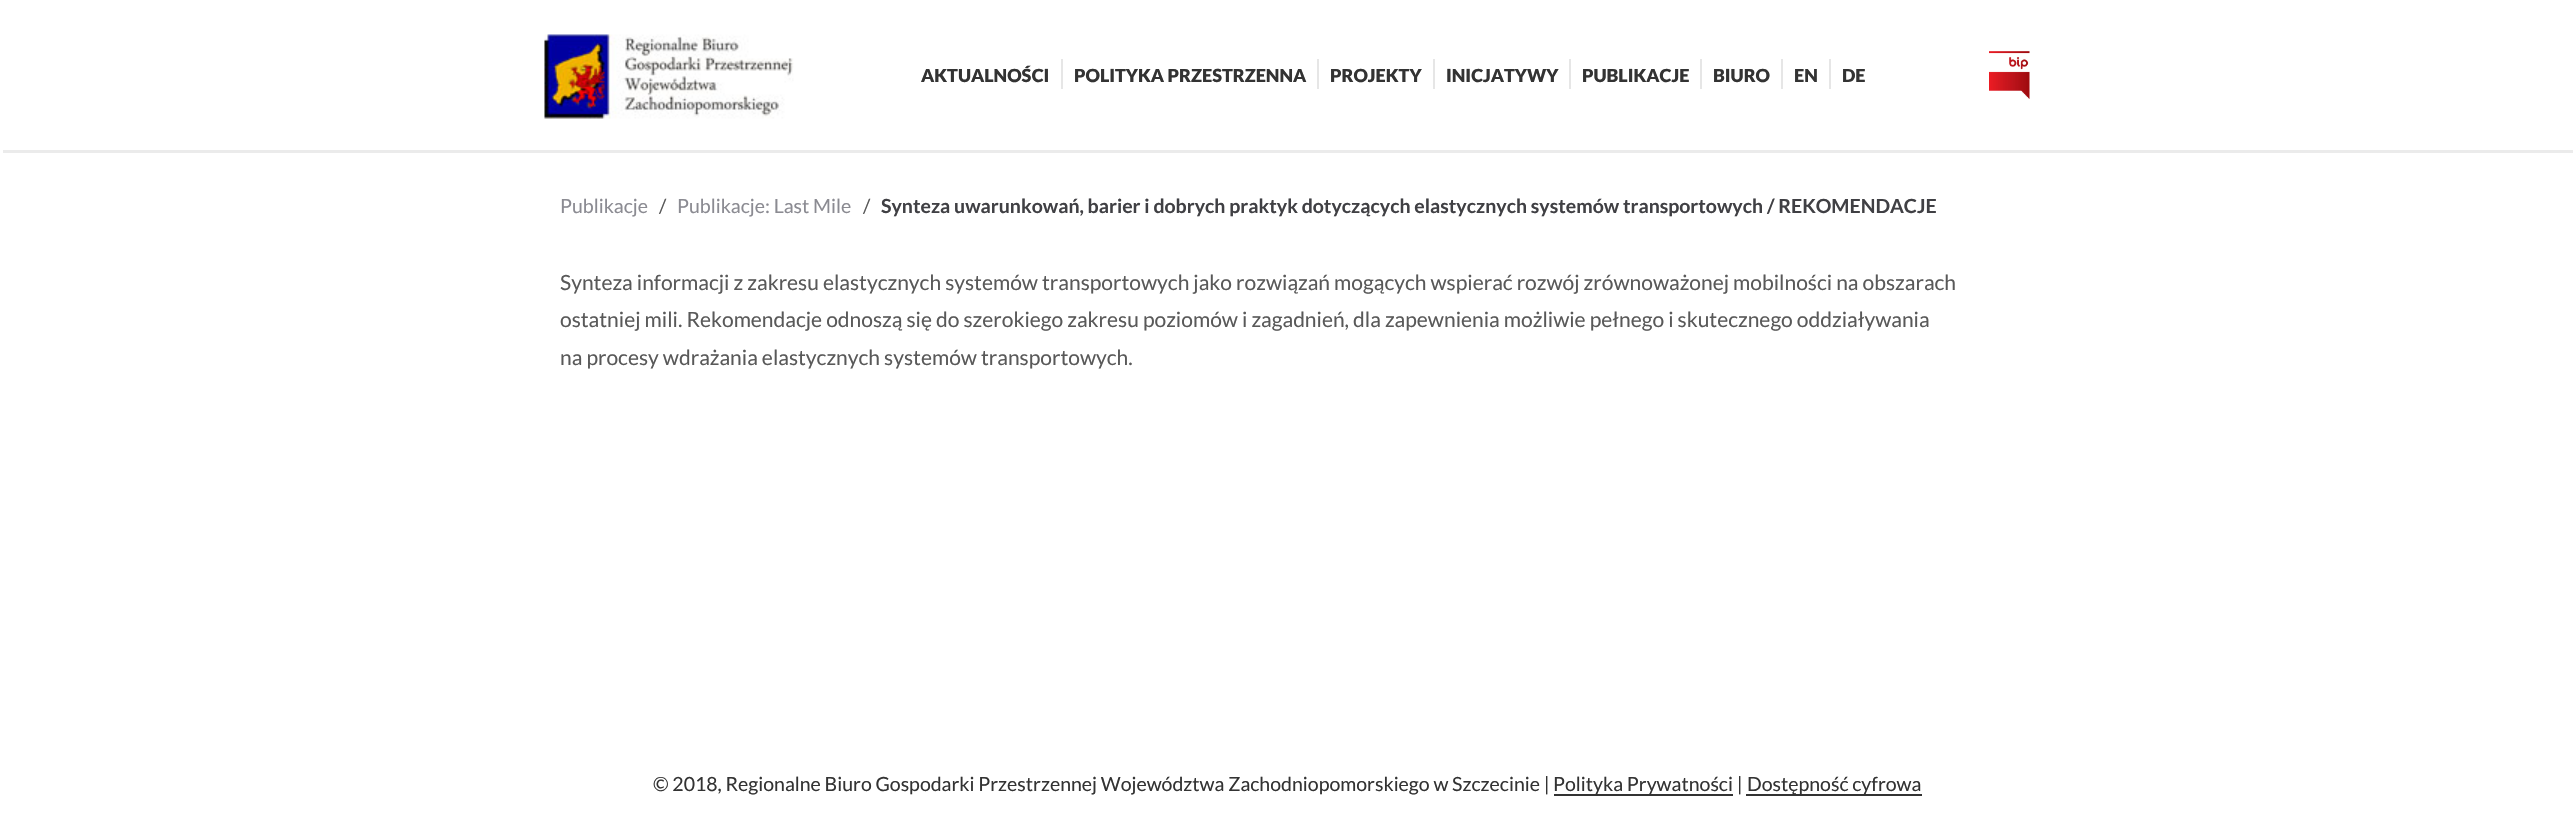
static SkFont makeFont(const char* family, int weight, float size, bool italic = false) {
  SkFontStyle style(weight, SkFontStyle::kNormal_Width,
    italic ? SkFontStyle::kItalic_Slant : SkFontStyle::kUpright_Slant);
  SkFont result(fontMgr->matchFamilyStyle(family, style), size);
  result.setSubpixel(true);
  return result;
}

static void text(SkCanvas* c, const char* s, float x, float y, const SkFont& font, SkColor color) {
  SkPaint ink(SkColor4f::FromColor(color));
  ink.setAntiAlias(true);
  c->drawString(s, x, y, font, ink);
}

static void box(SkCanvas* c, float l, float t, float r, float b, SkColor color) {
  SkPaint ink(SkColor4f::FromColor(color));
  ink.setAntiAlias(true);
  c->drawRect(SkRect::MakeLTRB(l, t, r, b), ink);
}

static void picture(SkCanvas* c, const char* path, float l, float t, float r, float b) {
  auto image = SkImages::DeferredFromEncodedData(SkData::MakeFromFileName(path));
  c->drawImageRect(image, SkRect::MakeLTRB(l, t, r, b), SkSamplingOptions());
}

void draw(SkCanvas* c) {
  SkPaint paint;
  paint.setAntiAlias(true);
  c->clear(0xffffffff);
  box(c, 3, 150, 2573, 153, 0xffebebeb);
  picture(c, "img_01.png", 544, 34, 794, 119);
  SkFont face1 = makeFont("Lato", 900, 18);
  text(c, "AKTUALNOŚCI", 921, 82, face1, 0xff333333);
  box(c, 1061, 59, 1063, 89, 0xffe6e6e6);
  text(c, "POLITYKA PRZESTRZENNA", 1074, 82, face1, 0xff333333);
  box(c, 1317, 59, 1319, 89, 0xffe6e6e6);
  text(c, "PROJEKTY", 1330, 82, face1, 0xff333333);
  box(c, 1433, 59, 1435, 89, 0xffe6e6e6);
  text(c, "INICJATYWY", 1446, 82, face1, 0xff333333);
  box(c, 1569, 59, 1571, 89, 0xffe6e6e6);
  text(c, "PUBLIKACJE", 1582, 82, face1, 0xff333333);
  box(c, 1700, 59, 1702, 89, 0xffe6e6e6);
  text(c, "BIURO", 1713, 82, face1, 0xff333333);
  box(c, 1781, 59, 1783, 89, 0xffe6e6e6);
  text(c, "EN", 1794, 82, face1, 0xff333333);
  box(c, 1829, 59, 1831, 89, 0xffe6e6e6);
  text(c, "DE", 1842, 82, face1, 0xff333333);
  picture(c, "img_02.png", 1989, 51, 2030, 99);
  SkFont face2 = makeFont("Lato", 400, 19.5f);
  text(c, "Publikacje", 560, 213, face2, 0xff8b8b92);
  text(c, "/", 659, 213, face2, 0xff595959);
  text(c, "Publikacje: Last Mile", 677, 213, face2, 0xff8b8b92);
  text(c, "/", 863, 213, face2, 0xff595959);
  SkFont face3 = makeFont("Lato", 700, 19.5f);
  text(c, "Synteza uwarunkowań, barier i dobrych praktyk dotyczących elastycznych systemów transportowych / REKOMENDACJE", 881, 213, face3, 0xff404044);
  SkFont face4 = makeFont("Lato", 400, 21);
  text(c, "Synteza informacji z zakresu elastycznych systemów transportowych jako rozwiązań mogących wspierać rozwój zrównoważonej mobilności na obszarach", 560, 290, face4, 0xff595959);
  text(c, "ostatniej mili. Rekomendacje odnoszą się do szerokiego zakresu poziomów i zagadnień, dla zapewnienia możliwie pełnego i skutecznego oddziaływania", 560, 327, face4, 0xff595959);
  text(c, "na procesy wdrażania elastycznych systemów transportowych.", 560, 365, face4, 0xff595959);
  text(c, "© 2018, Regionalne Biuro Gospodarki Przestrzennej Województwa Zachodniopomorskiego w Szczecinie |", 653, 791, face2, 0xff333333);
  box(c, 1554, 794, 1733, 796, 0xff333333);
  text(c, "Polityka Prywatności |", 1553, 791, face2, 0xff333333);
  box(c, 1746, 794, 1922, 796, 0xff333333);
  text(c, "Dostępność cyfrowa", 1747, 791, face2, 0xff333333);
}
